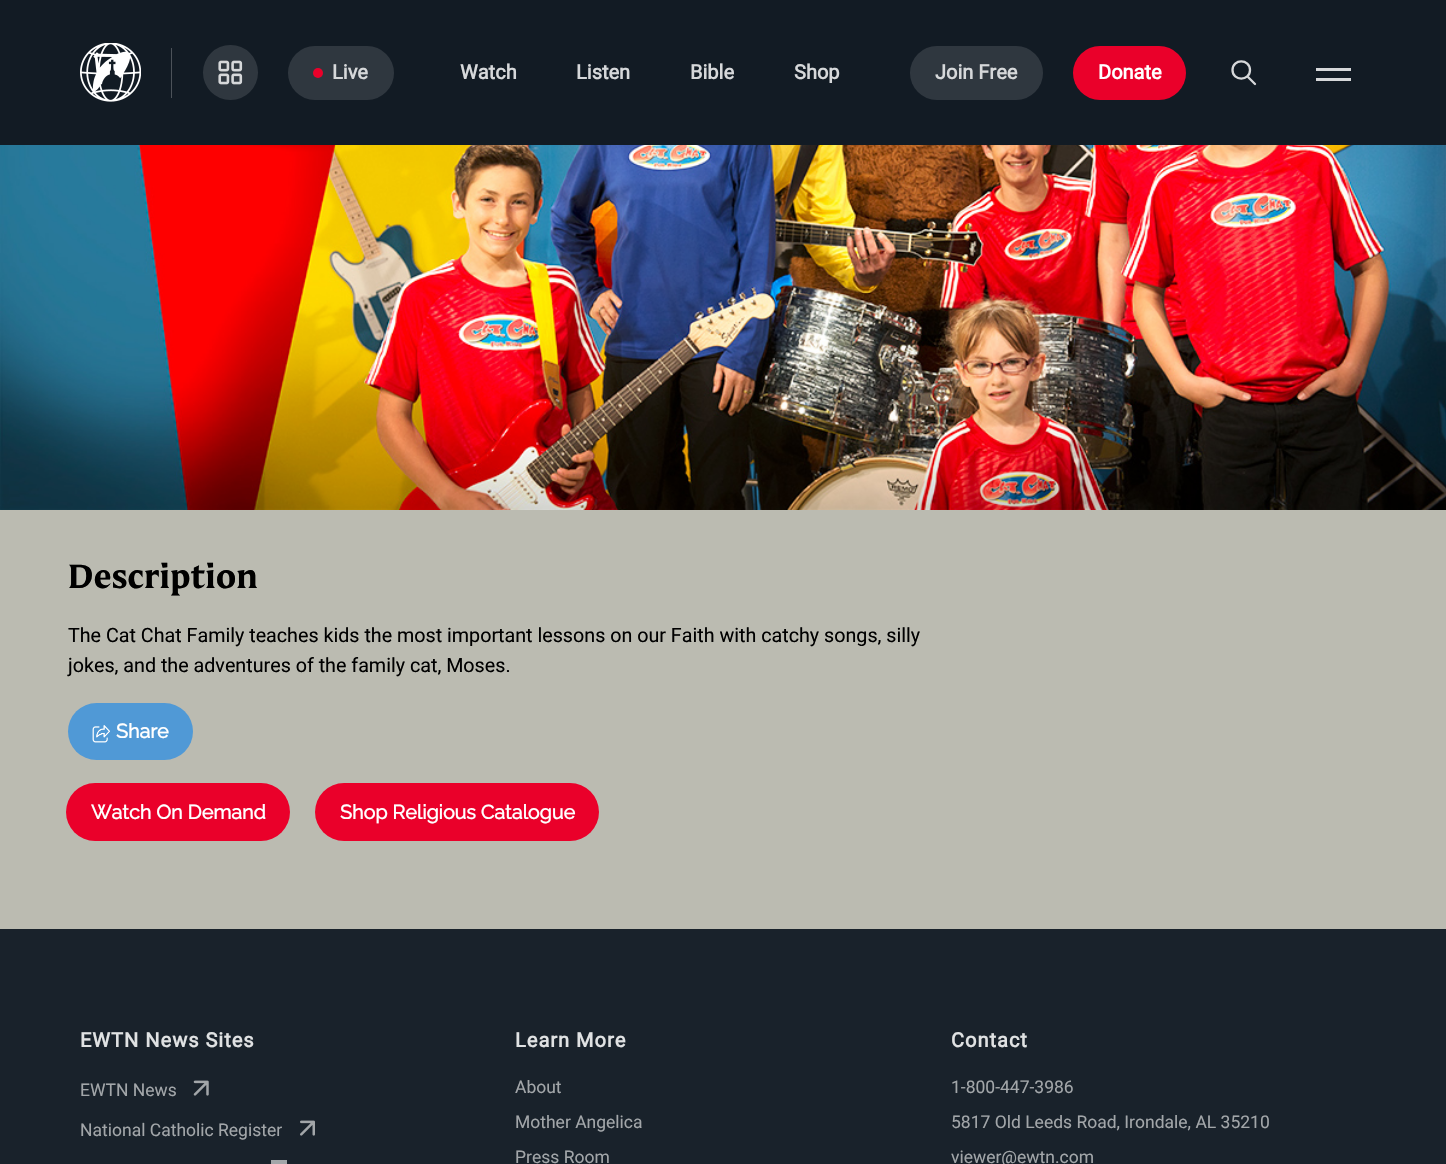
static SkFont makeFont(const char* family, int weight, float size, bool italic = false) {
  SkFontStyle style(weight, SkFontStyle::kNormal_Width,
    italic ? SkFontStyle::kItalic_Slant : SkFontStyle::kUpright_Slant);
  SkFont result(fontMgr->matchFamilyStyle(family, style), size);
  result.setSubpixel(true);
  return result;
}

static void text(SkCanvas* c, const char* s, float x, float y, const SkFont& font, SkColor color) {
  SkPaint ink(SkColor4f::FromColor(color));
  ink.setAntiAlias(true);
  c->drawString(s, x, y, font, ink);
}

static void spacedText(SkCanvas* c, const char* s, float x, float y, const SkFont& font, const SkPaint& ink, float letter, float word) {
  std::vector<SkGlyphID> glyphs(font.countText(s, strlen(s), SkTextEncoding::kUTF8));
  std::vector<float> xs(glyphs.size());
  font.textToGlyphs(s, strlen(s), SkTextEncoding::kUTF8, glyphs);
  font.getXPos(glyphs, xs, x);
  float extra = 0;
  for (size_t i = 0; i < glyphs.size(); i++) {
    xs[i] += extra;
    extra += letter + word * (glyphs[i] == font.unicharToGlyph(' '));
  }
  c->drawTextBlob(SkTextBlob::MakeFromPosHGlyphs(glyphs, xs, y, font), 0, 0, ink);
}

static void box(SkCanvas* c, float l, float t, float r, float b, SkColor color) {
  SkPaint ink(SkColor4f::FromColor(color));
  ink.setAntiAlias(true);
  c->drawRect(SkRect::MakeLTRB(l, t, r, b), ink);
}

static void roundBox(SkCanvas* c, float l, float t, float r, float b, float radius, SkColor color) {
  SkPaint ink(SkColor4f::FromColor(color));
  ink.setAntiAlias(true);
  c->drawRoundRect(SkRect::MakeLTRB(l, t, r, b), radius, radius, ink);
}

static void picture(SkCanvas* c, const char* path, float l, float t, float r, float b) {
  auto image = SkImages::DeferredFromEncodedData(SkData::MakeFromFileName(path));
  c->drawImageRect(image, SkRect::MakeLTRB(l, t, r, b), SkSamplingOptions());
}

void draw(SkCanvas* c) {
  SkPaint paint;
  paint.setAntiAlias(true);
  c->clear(0xffbbbbb1);
  box(c, 0, 0, 1446, 145, 0xff121b24);
  picture(c, "img_01.png", 80, 43, 141, 102);
  box(c, 171, 48, 172, 98, 0xff4c5259);
  paint.setColor(0xff2f373f);
  c->drawCircle(230.5f, 72.5f, 27.5f, paint);
  picture(c, "img_02.png", 218, 60, 243, 85);
  roundBox(c, 288, 46, 394, 100, 27, 0xff2f373f);
  paint.setColor(0xffea002a);
  c->drawCircle(318, 73, 5, paint);
  SkFont face1 = makeFont("Roboto", 700, 20);
  text(c, "Live", 332, 79, face1, 0xffd6d8da);
  text(c, "Watch", 460, 79, face1, 0xffd6d8da);
  text(c, "Listen", 576, 79, face1, 0xffd6d8da);
  text(c, "Bible", 690, 79, face1, 0xffd6d8da);
  text(c, "Shop", 794, 79, face1, 0xffd6d8da);
  roundBox(c, 910, 46, 1043, 100, 27, 0xff2f373f);
  text(c, "Join Free", 935, 79, face1, 0xffd6d8da);
  roundBox(c, 1073, 46, 1186, 100, 27, 0xffea002a);
  text(c, "Donate", 1098, 79, face1, 0xffffffff);
  paint.setStyle(SkPaint::kStroke_Style);
  paint.setStrokeWidth(2.3f);
  paint.setStrokeCap(SkPaint::kRound_Cap);
  paint.setStrokeJoin(SkPaint::kRound_Join);
  paint.setColor(0xffd6d8da);
  c->drawPath(SkPathBuilder().moveTo(1255, 84).lineTo(1247.5f, 76.5f).moveTo(1250, 70).cubicTo(1250, 81.5f, 1232.5f, 81.5f, 1232.5f, 70).cubicTo(1232.5f, 58.5f, 1250, 58.5f, 1250, 70).close().detach(), paint);
  box(c, 1316, 68, 1351, 71, 0xffd6d8da);
  box(c, 1316, 78, 1351, 81, 0xffd6d8da);
  picture(c, "img_03.png", 0, 145, 1446, 510);
  SkFont face2 = makeFont("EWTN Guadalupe", 700, 33.75f);
  text(c, "Description", 68, 588, face2, 0xff000000);
  SkFont face3 = makeFont("Roboto", 400, 19.7f);
  text(c, "The Cat Chat Family teaches kids the most important lessons on our Faith with catchy songs, silly", 68, 642, face3, 0xff000000);
  text(c, "jokes, and the adventures of the family cat, Moses.", 68, 672, face3, 0xff000000);
  roundBox(c, 68, 703, 193, 760, 28.5f, 0xff5099d6);
  picture(c, "img_04.png", 92, 725, 110, 743);
  SkFont face4 = makeFont("Raleway", 700, 19.7f);
  text(c, "Share", 116, 738, face4, 0xffffffff);
  roundBox(c, 66, 783, 290, 841, 29, 0xffea002a);
  text(c, "Watch On Demand", 91, 819, face4, 0xffffffff);
  roundBox(c, 315, 783, 599, 841, 29, 0xffea002a);
  text(c, "Shop Religious Catalogue", 340, 819, face4, 0xffffffff);
  box(c, 0, 929, 1446, 1164, 0xff19222b);
  paint.setStyle(SkPaint::kFill_Style);
  paint.setColor(0xffe0e2e3);
  spacedText(c, "EWTN News Sites", 80, 1047, face1, paint, 1, 0);
  SkFont face5 = makeFont("Roboto", 400, 17.5f);
  text(c, "EWTN News", 80, 1096, face5, 0xffa2a6a9);
  picture(c, "img_05.png", 193, 1080, 209, 1096);
  text(c, "National Catholic Register", 80, 1136, face5, 0xffa2a6a9);
  picture(c, "img_06.png", 300, 1120, 315, 1136);
  box(c, 271, 1160, 287, 1164, 0xffa2a6a9);
  spacedText(c, "Learn More", 515, 1047, face1, paint, 1, 0);
  text(c, "About", 515, 1093, face5, 0xffa2a6a9);
  text(c, "Mother Angelica", 515, 1128, face5, 0xffa2a6a9);
  text(c, "Press Room", 515, 1163, face5, 0xffa2a6a9);
  spacedText(c, "Contact", 951, 1047, face1, paint, 1, 0);
  text(c, "1-800-447-3986", 951, 1093, face5, 0xffa2a6a9);
  text(c, "5817 Old Leeds Road, Irondale, AL 35210", 951, 1128, face5, 0xffa2a6a9);
  text(c, "viewer@ewtn.com", 951, 1163, face5, 0xffa2a6a9);
}
